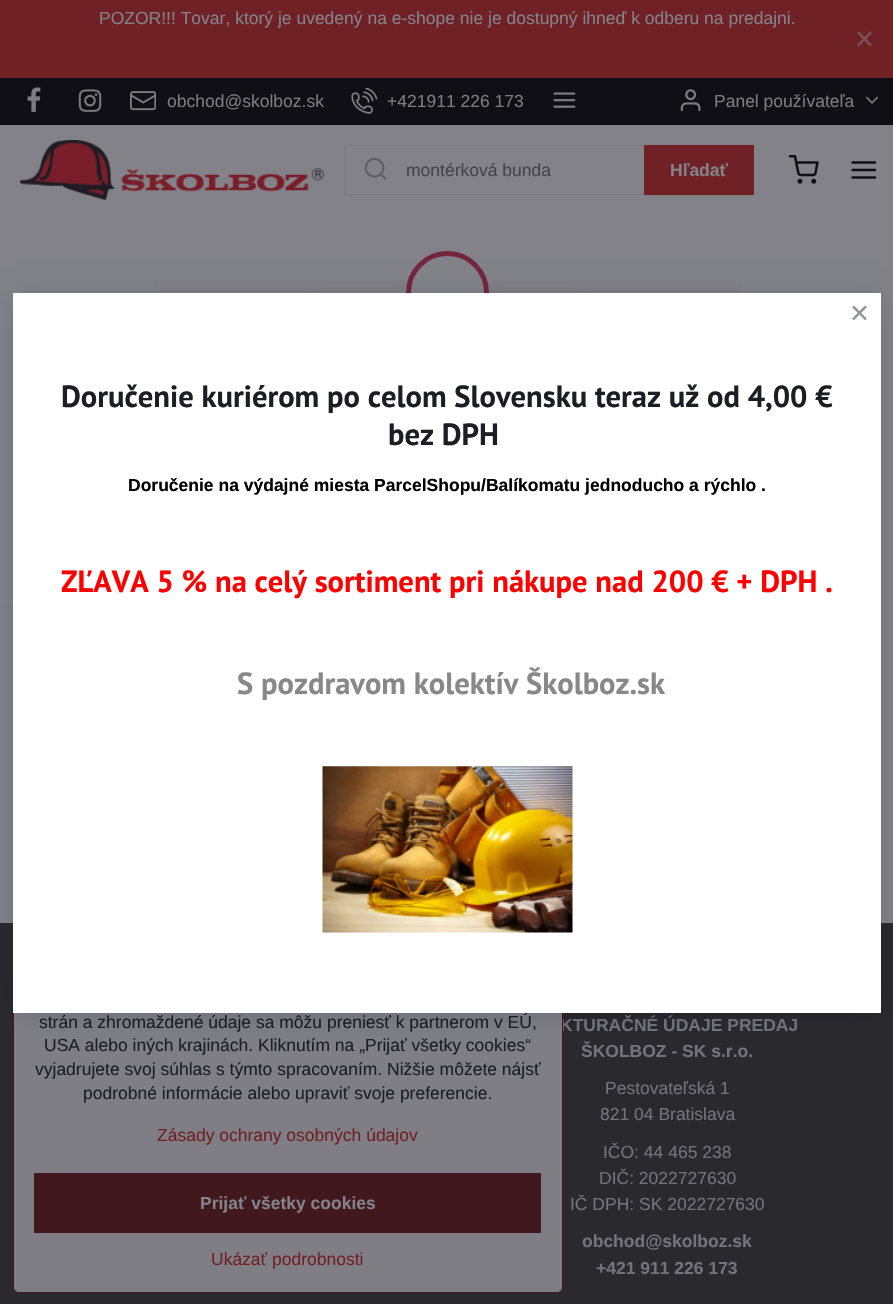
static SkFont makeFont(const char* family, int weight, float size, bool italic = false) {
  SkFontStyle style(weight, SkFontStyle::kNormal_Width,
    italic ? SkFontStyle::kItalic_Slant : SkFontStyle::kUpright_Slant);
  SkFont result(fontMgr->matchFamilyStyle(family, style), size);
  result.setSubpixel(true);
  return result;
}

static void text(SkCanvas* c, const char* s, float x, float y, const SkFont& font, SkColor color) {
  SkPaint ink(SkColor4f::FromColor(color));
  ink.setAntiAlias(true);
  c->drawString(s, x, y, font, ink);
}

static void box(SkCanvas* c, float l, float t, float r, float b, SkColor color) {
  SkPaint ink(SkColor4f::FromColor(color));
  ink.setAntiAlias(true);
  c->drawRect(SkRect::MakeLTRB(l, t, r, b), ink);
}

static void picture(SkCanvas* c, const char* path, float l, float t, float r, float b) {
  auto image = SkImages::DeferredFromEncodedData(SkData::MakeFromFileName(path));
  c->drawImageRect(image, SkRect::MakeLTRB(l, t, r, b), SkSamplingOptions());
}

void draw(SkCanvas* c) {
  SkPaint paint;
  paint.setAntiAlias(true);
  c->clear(0xff828288);
  box(c, 0, 0, 893, 78, 0xff702126);
  SkFont face1 = makeFont("Liberation Sans", 400, 17.5f);
  text(c, "POZOR!!! Tovar, ktorý je uvedený na e-shope nie je dostupný ihneď k odberu na predajni.", 99, 24, face1, 0xff828288);
  SkFont face2 = makeFont("DejaVu Sans", 400, 25);
  text(c, "✕", 854, 48, face2, 0xff795257);
  box(c, 0, 78, 893, 125, 0xff0f0f15);
  picture(c, "img_01.png", 27, 87, 41, 112);
  picture(c, "img_02.png", 78, 89, 102, 112);
  picture(c, "img_03.png", 130, 91, 156, 111);
  text(c, "obchod@skolboz.sk", 167, 107, face1, 0xff7b7b80);
  picture(c, "img_04.png", 351, 88, 378, 114);
  text(c, "+421911 226 173", 387, 107, face1, 0xff7b7b80);
  picture(c, "img_05.png", 553, 92, 576, 108);
  picture(c, "img_06.png", 680, 89, 701, 112);
  text(c, "Panel používateľa", 714, 107, face1, 0xff7b7b80);
  picture(c, "img_07.png", 866, 96, 879, 104);
  picture(c, "img_08.png", 20, 140, 324, 200);
  paint.setStyle(SkPaint::kStroke_Style);
  paint.setStrokeWidth(1);
  paint.setColor(0xff7b7b7e);
  c->drawRect(SkRect::MakeLTRB(344.5f, 145.5f, 753.5f, 194.5f), paint);
  picture(c, "img_09.png", 364, 158, 387, 180);
  text(c, "montérková bunda", 406, 176, face1, 0xff44444a);
  box(c, 644, 145, 754, 195, 0xff702126);
  SkFont face3 = makeFont("Liberation Sans", 700, 17.5f);
  text(c, "Hľadať", 670, 176, face3, 0xff828288);
  picture(c, "img_10.png", 788, 155, 819, 184);
  picture(c, "img_11.png", 851, 161, 877, 179);
  box(c, 20, 291, 874, 292, 0xff7b7b7e);
  paint.setStyle(SkPaint::kFill_Style);
  {
    const SkColor colors[] = {0xff7f7d82, 0xff828288};
    const float stops[] = {0, 0.7f};
    SkMatrix m = SkMatrix::Translate(447, 291).preScale(724, 28);
    paint.setShader(SkGradientShader::MakeRadial({0, 0}, 1, colors, stops, 2, SkTileMode::kClamp, 0, &m));
    paint.setAlpha(255);
  }
  c->drawRect(SkRect::MakeLTRB(153, 280, 741, 291), paint);
  paint.setShader(nullptr);
  paint.setColor(0xff828288);
  c->drawCircle(447.5f, 292.5f, 39, paint);
  paint.setStyle(SkPaint::kStroke_Style);
  paint.setStrokeWidth(5);
  paint.setColor(0xff73263b);
  c->drawCircle(447.5f, 292.5f, 39, paint);
  box(c, 0, 606, 893, 607, 0xff7b7b7e);
  box(c, 0, 923, 893, 1304, 0xff2a292d);
  text(c, "KTURAČNÉ ÚDAJE PREDAJ", 560, 1031, face3, 0xff737379);
  text(c, "ŠKOLBOZ - SK s.r.o.", 581, 1057, face3, 0xff737379);
  text(c, "Pestovateľská 1", 605, 1094, face1, 0xff737379);
  text(c, "821 04 Bratislava", 600, 1120, face1, 0xff737379);
  text(c, "IČO: 44 465 238", 603, 1158, face1, 0xff737379);
  text(c, "DIČ: 2022727630", 599, 1184, face1, 0xff737379);
  text(c, "IČ DPH: SK 2022727630", 570, 1210, face1, 0xff737379);
  text(c, "obchod@skolboz.sk", 582, 1247, face3, 0xff737379);
  text(c, "+421 911 226 173", 596, 1274, face3, 0xff737379);
  paint.setStyle(SkPaint::kFill_Style);
  paint.setColor(0xf2828288);
  c->drawRoundRect(SkRect::MakeLTRB(13.5f, 860.5f, 562.5f, 1292.5f), 5.5f, 5.5f, paint);
  paint.setStyle(SkPaint::kStroke_Style);
  paint.setStrokeWidth(1);
  paint.setColor(0xff40181d);
  c->drawRoundRect(SkRect::MakeLTRB(13.5f, 860.5f, 562.5f, 1292.5f), 5.5f, 5.5f, paint);
  paint.setStyle(SkPaint::kFill_Style);
  paint.setColor(0x26000014);
  paint.setMaskFilter(SkMaskFilter::MakeBlur(kNormal_SkBlurStyle, 13));
  c->drawRect(SkRect::MakeLTRB(15, 298, 879, 1013), paint);
  paint.setMaskFilter(nullptr);
  text(c, "strán a zhromaždené údaje sa môžu preniesť k partnerom v EÚ,", 39, 1028, face1, 0xff1c1e24);
  box(c, 13, 293, 881, 1013, 0xffffffff);
  text(c, "✕", 849, 322, face2, 0xff95979c);
  SkFont face4 = makeFont("PT Sans", 700, 30.6f);
  text(c, "Doručenie kuriérom po celom Slovensku teraz už od 4,00 €", 61, 407, face4, 0xff1c1e24);
  text(c, "bez DPH", 388, 445, face4, 0xff1c1e24);
  text(c, "Doručenie na výdajné miesta ParcelShopu/Balíkomatu jednoducho a rýchlo .", 128, 491, face3, 0xff000000);
  text(c, "ZĽAVA 5 % na celý sortiment pri nákupe nad 200 € + DPH .", 61, 592, face4, 0xffff0000);
  text(c, "S pozdravom kolektív Školboz.sk", 237, 694, face4, 0xff888888);
  picture(c, "img_12.png", 322, 766, 573, 933);
  text(c, "USA alebo iných krajinách. Kliknutím na „Prijať všetky cookies“", 44, 1051, face1, 0xff1c1e24);
  text(c, "vyjadrujete svoj súhlas s týmto spracovaním. Nižšie môžete nájsť", 35, 1075, face1, 0xff1c1e24);
  text(c, "podrobné informácie alebo upraviť svoje preferencie.", 83, 1099, face1, 0xff1c1e24);
  text(c, "Zásady ochrany osobných údajov", 157, 1141, face1, 0xff702126);
  box(c, 34, 1173, 541, 1233, 0xff40181d);
  text(c, "Prijať všetky cookies", 200, 1209, face3, 0xff828288);
  text(c, "Ukázať podrobnosti", 211, 1265, face1, 0xff702126);
}
